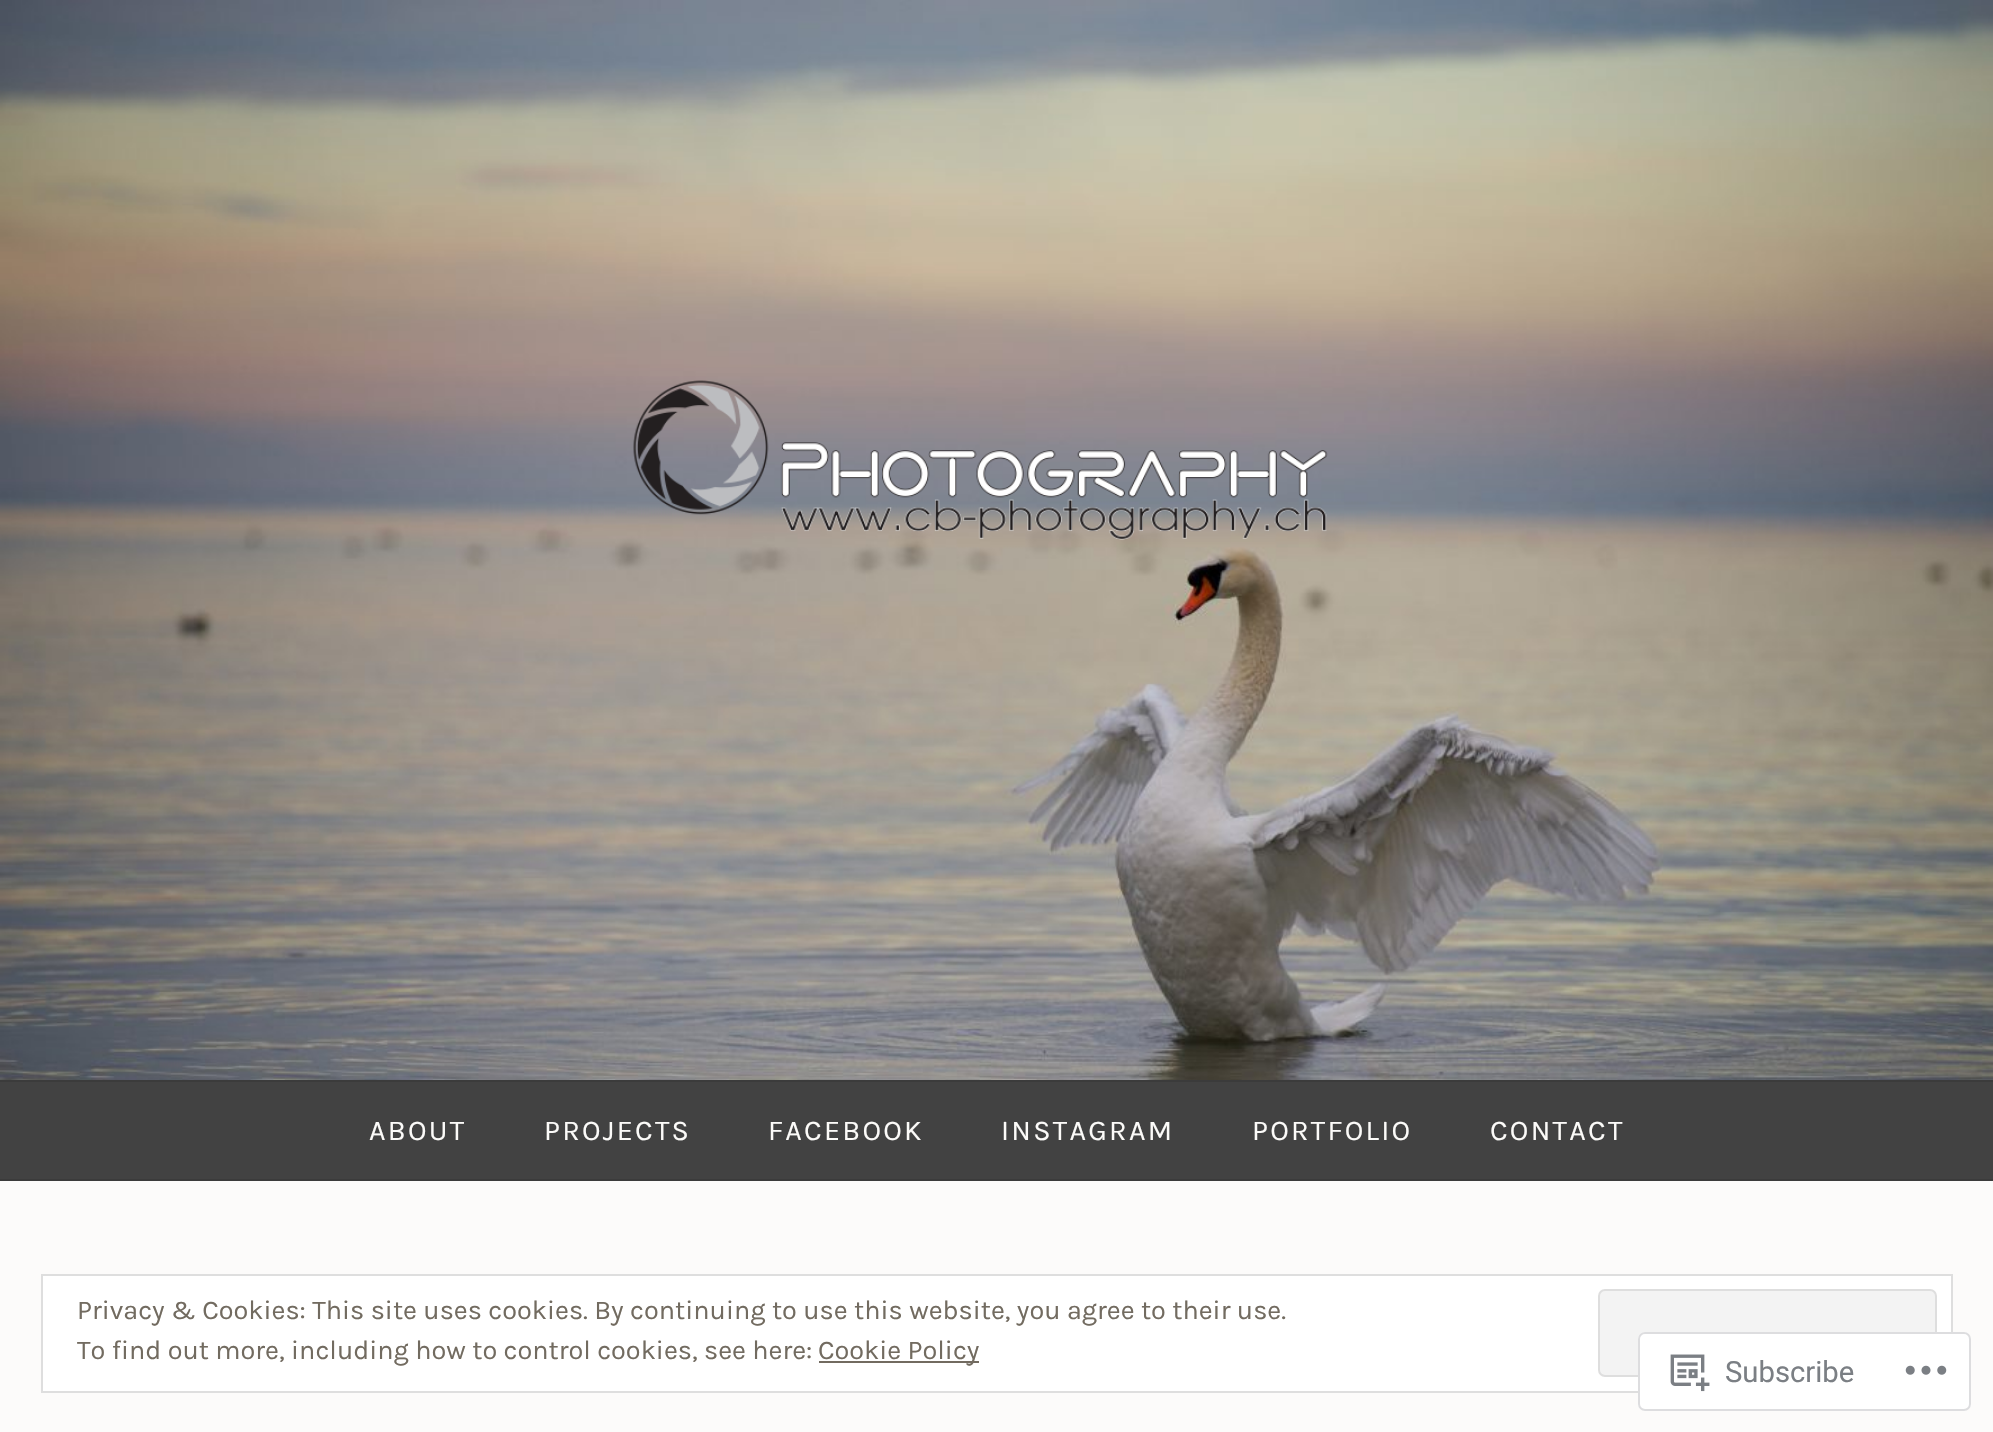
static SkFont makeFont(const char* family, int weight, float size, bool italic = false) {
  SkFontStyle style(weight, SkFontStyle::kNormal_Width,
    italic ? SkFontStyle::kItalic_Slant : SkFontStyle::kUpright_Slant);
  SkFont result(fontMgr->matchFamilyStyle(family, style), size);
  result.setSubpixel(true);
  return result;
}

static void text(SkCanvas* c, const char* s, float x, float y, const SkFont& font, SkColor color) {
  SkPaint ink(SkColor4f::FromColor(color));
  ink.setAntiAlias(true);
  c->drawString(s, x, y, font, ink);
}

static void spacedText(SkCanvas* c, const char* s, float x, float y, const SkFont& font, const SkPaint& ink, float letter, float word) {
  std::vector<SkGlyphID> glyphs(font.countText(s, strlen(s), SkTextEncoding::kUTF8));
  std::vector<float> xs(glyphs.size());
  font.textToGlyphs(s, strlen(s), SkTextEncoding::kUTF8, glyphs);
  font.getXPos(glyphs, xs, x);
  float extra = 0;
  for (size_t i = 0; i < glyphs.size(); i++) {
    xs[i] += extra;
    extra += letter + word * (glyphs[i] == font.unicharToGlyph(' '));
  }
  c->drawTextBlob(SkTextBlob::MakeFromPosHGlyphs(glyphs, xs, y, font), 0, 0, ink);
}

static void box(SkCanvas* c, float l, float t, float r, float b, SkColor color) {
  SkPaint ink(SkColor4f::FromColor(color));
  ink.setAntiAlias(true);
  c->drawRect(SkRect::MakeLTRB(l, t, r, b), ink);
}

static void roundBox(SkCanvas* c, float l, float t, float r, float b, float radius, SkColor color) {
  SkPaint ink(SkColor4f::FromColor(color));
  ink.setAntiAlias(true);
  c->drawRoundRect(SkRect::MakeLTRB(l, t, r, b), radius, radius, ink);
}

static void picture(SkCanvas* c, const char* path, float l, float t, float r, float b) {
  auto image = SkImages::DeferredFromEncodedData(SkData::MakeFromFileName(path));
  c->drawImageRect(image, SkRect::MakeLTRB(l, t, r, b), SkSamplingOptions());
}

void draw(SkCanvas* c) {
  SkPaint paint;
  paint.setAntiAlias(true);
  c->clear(0xfffcfbfa);
  picture(c, "img_01.png", 0, 0, 1993, 1080);
  picture(c, "img_02.png", 633, 380, 1328, 540);
  box(c, 0, 1082, 1993, 1179, 0xff424242);
  box(c, 0, 1080, 1993, 1082, 0xff3b3b3b);
  box(c, 0, 1179, 1993, 1181, 0xff3b3b3b);
  SkFont face1 = makeFont("Karla", 400, 28.75f);
  paint.setColor(0xfffcfbf9);
  spacedText(c, "ABOUT", 369, 1140, face1, paint, 2.25f, 0);
  spacedText(c, "PROJECTS", 544, 1140, face1, paint, 2.25f, 0);
  spacedText(c, "FACEBOOK", 768, 1140, face1, paint, 2.25f, 0);
  spacedText(c, "INSTAGRAM", 1001, 1140, face1, paint, 2.25f, 0);
  spacedText(c, "PORTFOLIO", 1252, 1140, face1, paint, 2.25f, 0);
  spacedText(c, "CONTACT", 1490, 1140, face1, paint, 2.25f, 0);
  paint.setColor(0xffffffff);
  c->drawRect(SkRect::MakeLTRB(42, 1275, 1952, 1392), paint);
  paint.setStyle(SkPaint::kStroke_Style);
  paint.setStrokeWidth(2);
  paint.setColor(0xffdedede);
  c->drawRect(SkRect::MakeLTRB(42, 1275, 1952, 1392), paint);
  SkFont face2 = makeFont("Karla", 400, 27);
  text(c, "Privacy & Cookies: This site uses cookies. By continuing to use this website, you agree to their use.", 77, 1319, face2, 0xff726b60);
  paint.setStyle(SkPaint::kFill_Style);
  paint.setColor(0xfff3f3f3);
  c->drawRoundRect(SkRect::MakeLTRB(1599, 1290, 1936, 1376), 6, 6, paint);
  paint.setStyle(SkPaint::kStroke_Style);
  paint.setColor(0xffdedede);
  c->drawRoundRect(SkRect::MakeLTRB(1599, 1290, 1936, 1376), 6, 6, paint);
  text(c, "To find out more, including how to control cookies, see here:", 77, 1359, face2, 0xff726b60);
  box(c, 819, 1361, 979, 1363, 0xff726b60);
  text(c, "Cookie Policy", 818, 1359, face2, 0xff726b60);
  roundBox(c, 1638, 1332, 1971, 1411, 7, 0xfaffffff);
  paint.setColor(0xfadcdcde);
  c->drawRoundRect(SkRect::MakeLTRB(1639, 1333, 1970, 1410), 6, 6, paint);
  picture(c, "img_03.png", 1670, 1354, 1710, 1392);
  SkFont face3 = makeFont("Roboto", 400, 29.25f);
  text(c, "Subscribe", 1725, 1382, face3, 0xff7b7f84);
  picture(c, "img_04.png", 1905, 1365, 1947, 1375);
}
